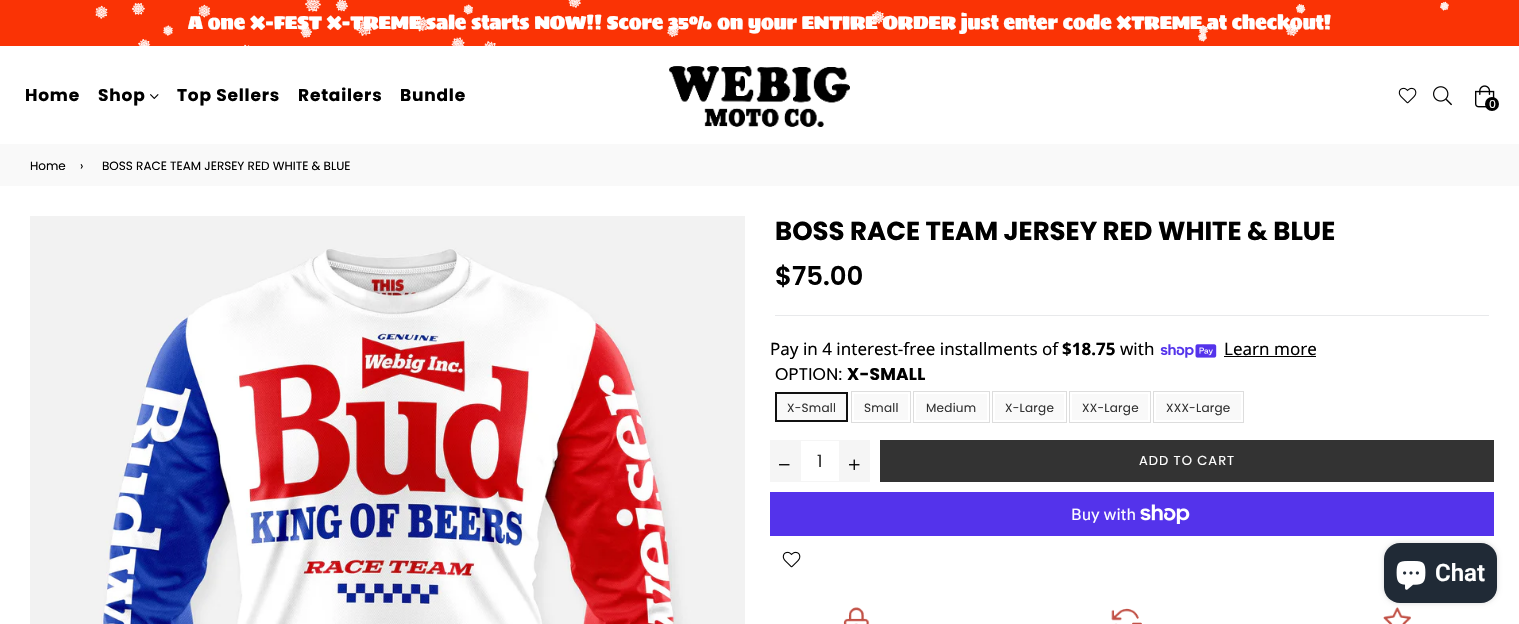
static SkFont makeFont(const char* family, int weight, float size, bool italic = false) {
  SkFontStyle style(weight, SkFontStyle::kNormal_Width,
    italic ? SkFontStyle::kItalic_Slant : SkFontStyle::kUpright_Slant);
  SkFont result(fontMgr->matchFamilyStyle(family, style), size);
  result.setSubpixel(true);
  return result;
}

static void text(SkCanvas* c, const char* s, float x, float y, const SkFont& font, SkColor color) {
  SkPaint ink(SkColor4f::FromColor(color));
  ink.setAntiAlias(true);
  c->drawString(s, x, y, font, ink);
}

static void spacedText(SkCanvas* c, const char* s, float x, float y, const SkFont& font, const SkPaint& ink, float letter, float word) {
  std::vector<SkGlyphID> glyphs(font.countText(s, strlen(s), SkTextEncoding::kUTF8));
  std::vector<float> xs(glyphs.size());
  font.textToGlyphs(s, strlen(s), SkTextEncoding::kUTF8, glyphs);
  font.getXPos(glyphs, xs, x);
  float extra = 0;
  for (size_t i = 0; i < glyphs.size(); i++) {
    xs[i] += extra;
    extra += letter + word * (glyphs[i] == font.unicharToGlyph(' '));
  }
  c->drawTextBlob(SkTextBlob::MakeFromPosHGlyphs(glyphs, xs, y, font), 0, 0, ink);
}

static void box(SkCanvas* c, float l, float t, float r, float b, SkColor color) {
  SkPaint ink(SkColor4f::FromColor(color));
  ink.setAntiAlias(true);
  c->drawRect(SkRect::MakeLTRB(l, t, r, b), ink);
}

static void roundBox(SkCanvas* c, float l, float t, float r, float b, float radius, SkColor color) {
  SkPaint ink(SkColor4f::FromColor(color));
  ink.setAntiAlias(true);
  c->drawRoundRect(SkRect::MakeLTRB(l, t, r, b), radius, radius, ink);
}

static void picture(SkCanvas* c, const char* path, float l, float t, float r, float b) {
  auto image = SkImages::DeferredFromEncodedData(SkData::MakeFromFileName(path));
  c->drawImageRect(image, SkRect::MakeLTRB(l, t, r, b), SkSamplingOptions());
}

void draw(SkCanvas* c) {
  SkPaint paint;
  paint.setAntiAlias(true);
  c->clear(0xffffffff);
  box(c, 0, 0, 1519, 46, 0xfffa3305);
  SkFont face1 = makeFont("Sigmar", 400, 19);
  text(c, "A one X-FEST X-TREME sale starts NOW!! Score 35% on your ENTIRE ORDER just enter code XTREME at checkout!", 188, 29, face1, 0xffffffff);
  picture(c, "img_01.png", 95, 0, 1449, 46);
  SkFont face2 = makeFont("Poppins", 700, 17);
  paint.setColor(0xff000000);
  spacedText(c, "Home", 25, 101, face2, paint, 0.8f, 0);
  spacedText(c, "Shop", 98, 101, face2, paint, 0.8f, 0);
  picture(c, "img_02.png", 150, 94, 159, 99);
  spacedText(c, "Top Sellers", 177, 101, face2, paint, 0.8f, 0);
  spacedText(c, "Retailers", 298, 101, face2, paint, 0.8f, 0);
  spacedText(c, "Bundle", 400, 101, face2, paint, 0.8f, 0);
  picture(c, "img_03.png", 669, 66, 850, 127);
  picture(c, "img_04.png", 1398, 87, 1417, 104);
  picture(c, "img_05.png", 1433, 86, 1452, 106);
  picture(c, "img_06.png", 1475, 85, 1495, 108);
  c->drawCircle(1492, 104, 7, paint);
  SkFont face3 = makeFont("Poppins", 400, 11);
  text(c, "0", 1489, 108, face3, 0xffffffff);
  box(c, 0, 144, 1519, 186, 0xfff9f9f9);
  SkFont face4 = makeFont("Poppins", 400, 12);
  text(c, "Home", 30, 170, face4, 0xff000000);
  text(c, "›", 80, 170, face4, 0xff000000);
  text(c, "BOSS RACE TEAM JERSEY RED WHITE & BLUE", 102, 170, face4, 0xff000000);
  picture(c, "img_07.png", 30, 216, 745, 624);
  SkFont face5 = makeFont("Poppins", 700, 26);
  text(c, "BOSS RACE TEAM JERSEY RED WHITE & BLUE", 775, 240, face5, 0xff000000);
  SkFont face6 = makeFont("Poppins", 600, 26);
  text(c, "$75.00", 775, 285, face6, 0xff000000);
  box(c, 775, 315, 1489, 316, 0xffe8e9eb);
  SkFont face7 = makeFont("Noto Sans", 400, 17);
  text(c, "Pay in 4 interest-free installments of", 770, 355, face7, 0xff000000);
  SkFont face8 = makeFont("Noto Sans", 700, 17);
  text(c, "$18.75", 1062, 355, face8, 0xff000000);
  text(c, "with", 1120, 355, face7, 0xff000000);
  picture(c, "img_08.png", 1160, 344, 1217, 358);
  text(c, "Learn more", 1224, 355, face7, 0xff000000);
  box(c, 1224, 356, 1316, 357, 0xff000000);
  SkFont face9 = makeFont("Poppins", 400, 17);
  spacedText(c, "OPTION:", 775, 380, face9, paint, 0.25f, 0);
  spacedText(c, "X-SMALL", 847, 380, face2, paint, 0.25f, 0);
  paint.setColor(0xfff9f9f9);
  c->drawRect(SkRect::MakeLTRB(776, 393, 847, 421), paint);
  paint.setStyle(SkPaint::kStroke_Style);
  paint.setStrokeWidth(2);
  paint.setColor(0xff111111);
  c->drawRect(SkRect::MakeLTRB(776, 393, 847, 421), paint);
  paint.setStyle(SkPaint::kFill_Style);
  paint.setColor(0xff333333);
  spacedText(c, "X-Small", 787, 412, face4, paint, 0.25f, 0);
  paint.setStyle(SkPaint::kStroke_Style);
  paint.setStrokeWidth(1);
  paint.setColor(0xffdddddd);
  c->drawRect(SkRect::MakeLTRB(851.5f, 391.5f, 910.5f, 422.5f), paint);
  box(c, 854, 394, 908, 420, 0xfff9f9f9);
  paint.setStyle(SkPaint::kFill_Style);
  paint.setColor(0xff333333);
  spacedText(c, "Small", 864, 412, face4, paint, 0.25f, 0);
  paint.setStyle(SkPaint::kStroke_Style);
  paint.setColor(0xffdddddd);
  c->drawRect(SkRect::MakeLTRB(913.5f, 391.5f, 989.5f, 422.5f), paint);
  box(c, 916, 394, 987, 420, 0xfff9f9f9);
  paint.setStyle(SkPaint::kFill_Style);
  paint.setColor(0xff333333);
  spacedText(c, "Medium", 926, 412, face4, paint, 0.25f, 0);
  paint.setStyle(SkPaint::kStroke_Style);
  paint.setColor(0xffdddddd);
  c->drawRect(SkRect::MakeLTRB(992.5f, 391.5f, 1066.5f, 422.5f), paint);
  box(c, 995, 394, 1064, 420, 0xfff9f9f9);
  paint.setStyle(SkPaint::kFill_Style);
  paint.setColor(0xff333333);
  spacedText(c, "X-Large", 1005, 412, face4, paint, 0.25f, 0);
  paint.setStyle(SkPaint::kStroke_Style);
  paint.setColor(0xffdddddd);
  c->drawRect(SkRect::MakeLTRB(1069.5f, 391.5f, 1150.5f, 422.5f), paint);
  box(c, 1072, 394, 1148, 420, 0xfff9f9f9);
  paint.setStyle(SkPaint::kFill_Style);
  paint.setColor(0xff333333);
  spacedText(c, "XX-Large", 1082, 412, face4, paint, 0.25f, 0);
  paint.setStyle(SkPaint::kStroke_Style);
  paint.setColor(0xffdddddd);
  c->drawRect(SkRect::MakeLTRB(1153.5f, 391.5f, 1243.5f, 422.5f), paint);
  box(c, 1156, 394, 1241, 420, 0xfff9f9f9);
  paint.setStyle(SkPaint::kFill_Style);
  paint.setColor(0xff333333);
  spacedText(c, "XXX-Large", 1166, 412, face4, paint, 0.25f, 0);
  box(c, 770, 440, 800, 482, 0xfff5f5f5);
  picture(c, "img_09.png", 779, 464, 790, 466);
  paint.setStyle(SkPaint::kStroke_Style);
  paint.setColor(0xfff5f5f5);
  c->drawRect(SkRect::MakeLTRB(800.5f, 440.5f, 839.5f, 481.5f), paint);
  text(c, "1", 817, 467, face9, 0xff333333);
  box(c, 840, 440, 870, 482, 0xfff5f5f5);
  picture(c, "img_10.png", 849, 459, 860, 470);
  box(c, 880, 440, 1494, 482, 0xff333333);
  SkFont face10 = makeFont("Poppins", 400, 13);
  paint.setStyle(SkPaint::kFill_Style);
  paint.setColor(0xffffffff);
  spacedText(c, "ADD TO CART", 1139, 465, face10, paint, 1, 0);
  box(c, 770, 492, 1494, 536, 0xff5433eb);
  SkFont face11 = makeFont("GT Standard", 400, 16);
  text(c, "Buy with", 1071, 520, face11, 0xffffffff);
  picture(c, "img_11.png", 1140, 504, 1190, 524);
  picture(c, "img_04.png", 782, 551, 801, 568);
  picture(c, "img_12.png", 843, 607, 1411, 624);
  paint.setColor(0x26000000);
  paint.setMaskFilter(SkMaskFilter::MakeBlur(kNormal_SkBlurStyle, 2.5f));
  c->drawRoundRect(SkRect::MakeLTRB(1384, 543, 1497, 603), 16, 16, paint);
  paint.setMaskFilter(nullptr);
  roundBox(c, 1384, 543, 1497, 603, 16, 0xff202a36);
  picture(c, "img_13.png", 1396, 561, 1426, 590);
  SkFont face12 = makeFont("Roboto", 600, 24);
  text(c, "Chat", 1435, 581, face12, 0xffffffff);
}
